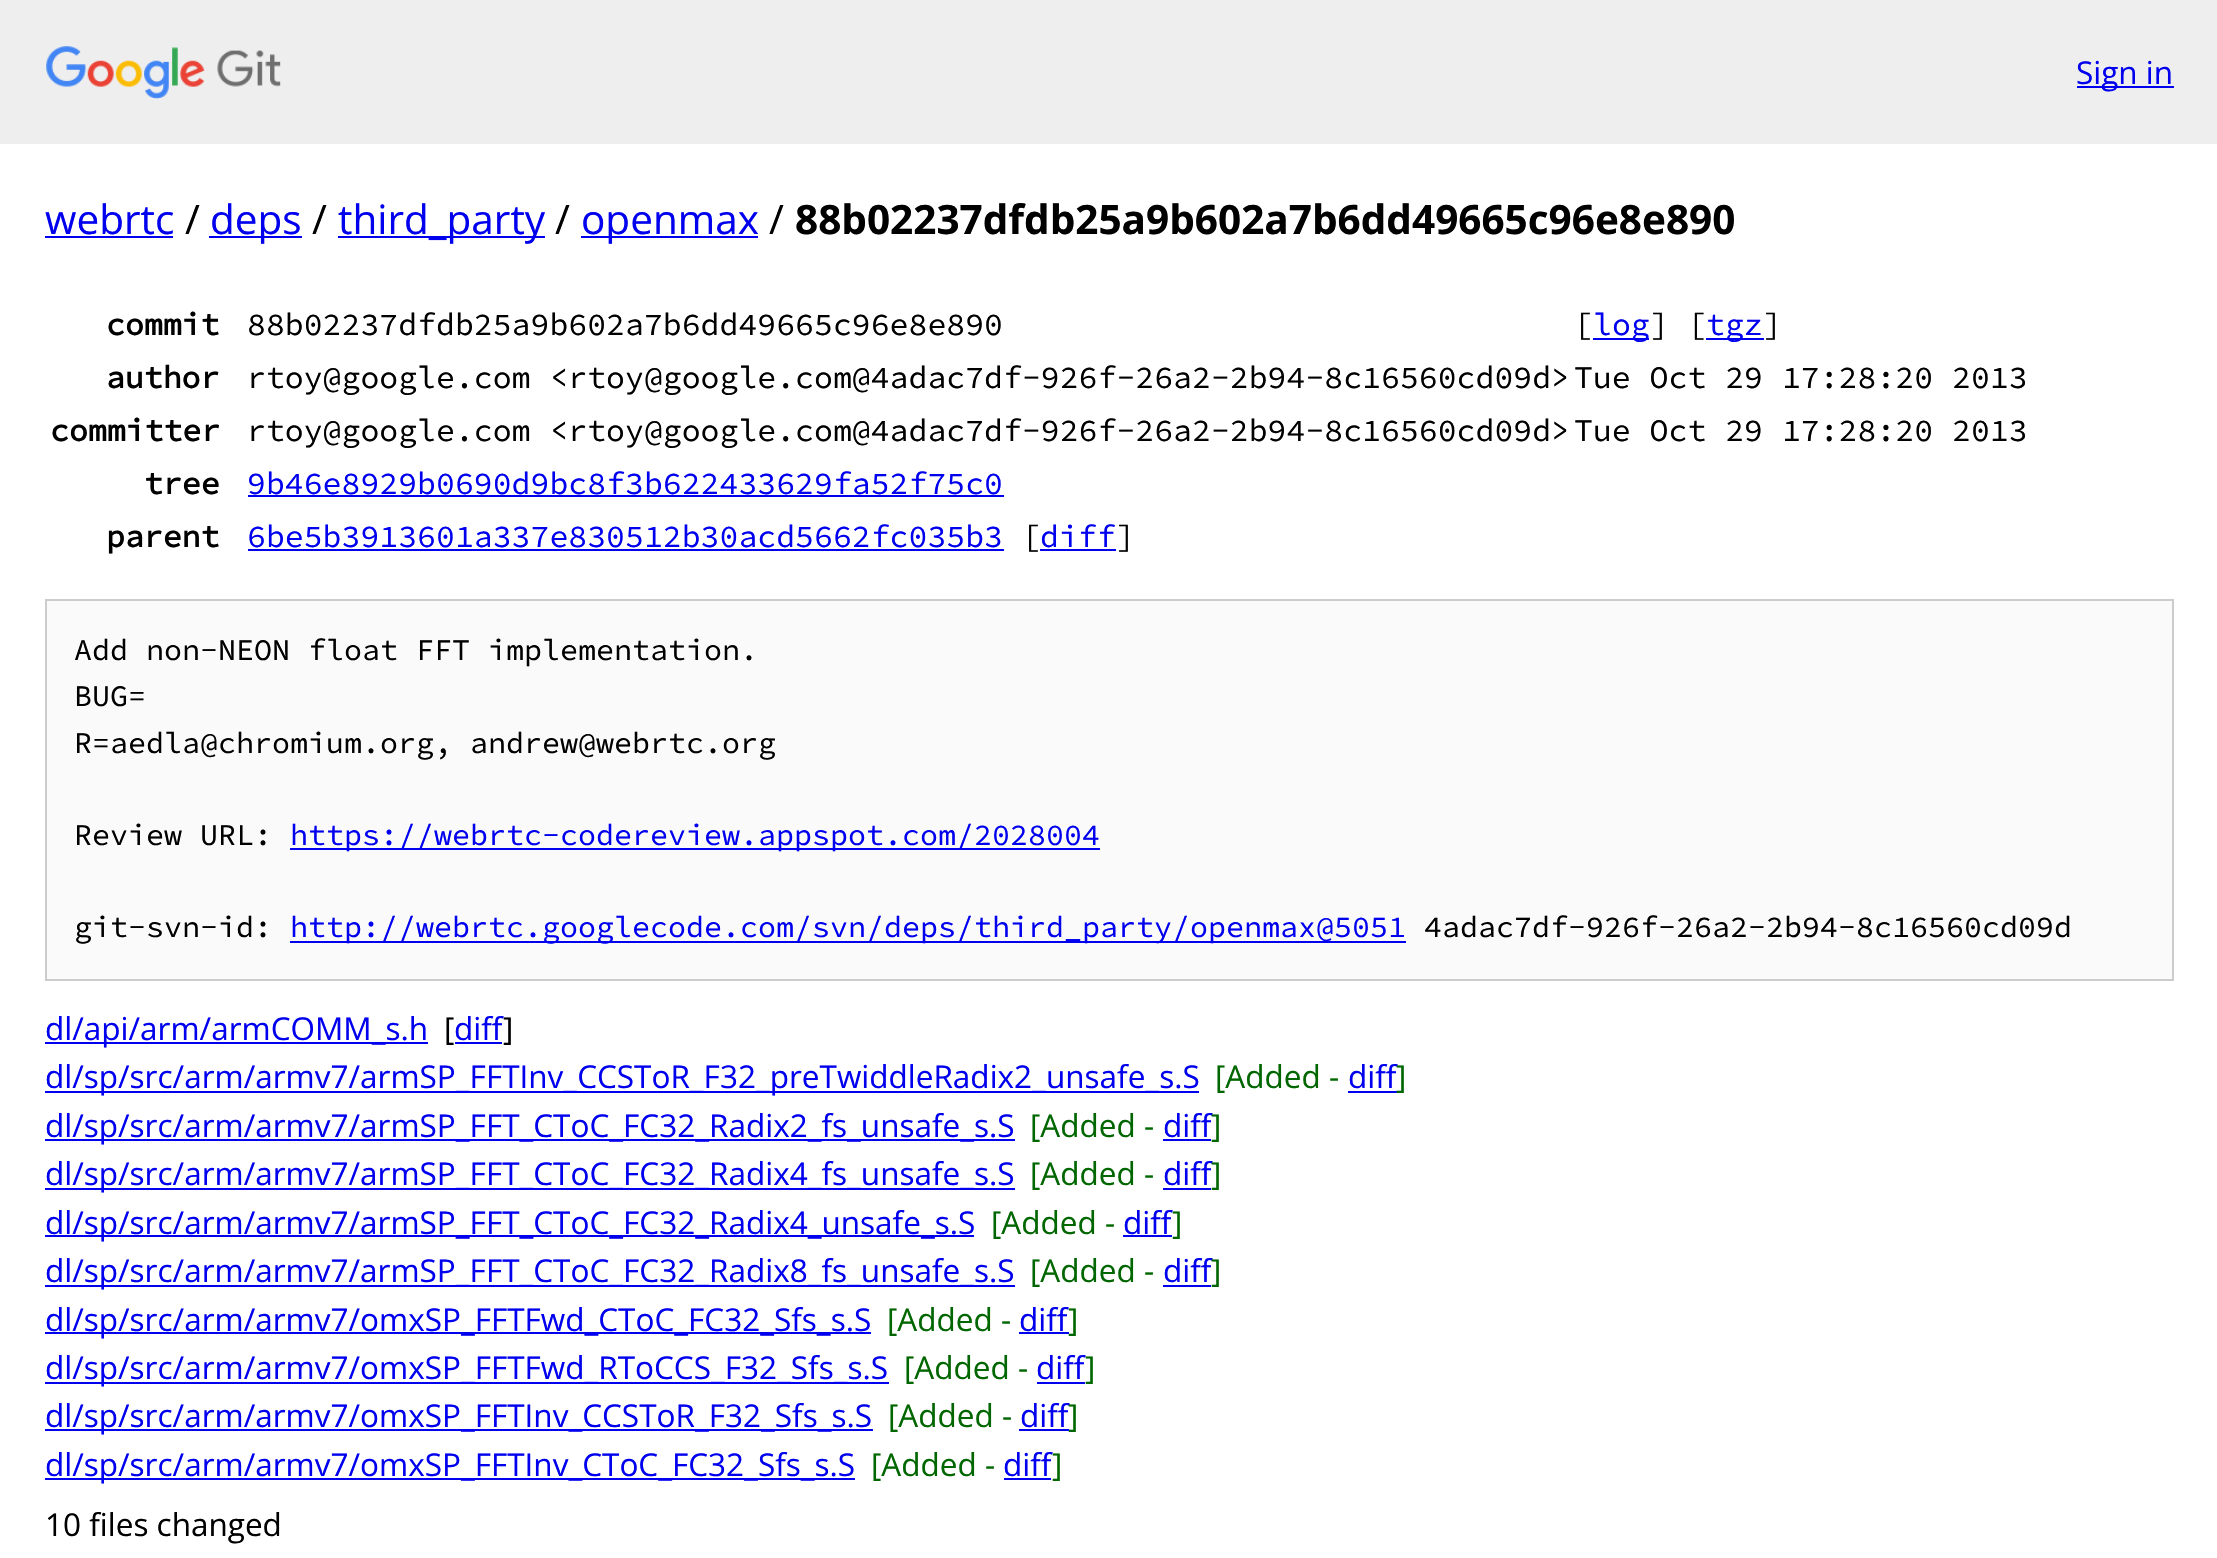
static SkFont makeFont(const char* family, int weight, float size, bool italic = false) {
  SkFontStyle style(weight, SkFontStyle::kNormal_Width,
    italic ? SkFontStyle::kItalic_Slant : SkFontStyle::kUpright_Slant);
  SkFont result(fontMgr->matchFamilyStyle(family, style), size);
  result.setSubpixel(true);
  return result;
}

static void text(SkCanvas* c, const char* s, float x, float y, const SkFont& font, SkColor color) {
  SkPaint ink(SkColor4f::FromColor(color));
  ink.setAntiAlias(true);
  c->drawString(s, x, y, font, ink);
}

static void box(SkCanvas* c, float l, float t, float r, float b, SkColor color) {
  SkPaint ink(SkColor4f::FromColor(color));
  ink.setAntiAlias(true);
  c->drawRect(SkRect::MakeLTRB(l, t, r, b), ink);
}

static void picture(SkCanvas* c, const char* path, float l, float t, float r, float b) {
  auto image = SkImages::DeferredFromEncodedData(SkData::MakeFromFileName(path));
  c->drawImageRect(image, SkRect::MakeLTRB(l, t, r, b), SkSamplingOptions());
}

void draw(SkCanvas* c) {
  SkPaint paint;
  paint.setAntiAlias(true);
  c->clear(0xffffffff);
  box(c, 0, 0, 2217, 144, 0xffeeeeee);
  picture(c, "img_01.png", 46, 46, 281, 99);
  box(c, 2077, 86, 2174, 88, 0xff0000ee);
  SkFont face1 = makeFont("Open Sans", 400, 31.5f);
  text(c, "Sign in", 2076, 84, face1, 0xff0000ee);
  SkFont face2 = makeFont("Open Sans", 400, 40.5f);
  text(c, "webrtc", 45, 234, face2, 0xff0000ee);
  box(c, 45, 236, 173, 238, 0xff0000ee);
  text(c, "/", 185, 234, face2, 0xff000000);
  box(c, 209, 236, 302, 238, 0xff0000ee);
  text(c, "deps", 210, 234, face2, 0xff0000ee);
  text(c, "/", 312, 234, face2, 0xff000000);
  box(c, 338, 236, 545, 238, 0xff0000ee);
  text(c, "third_party", 338, 234, face2, 0xff0000ee);
  text(c, "/", 555, 234, face2, 0xff000000);
  box(c, 581, 236, 758, 238, 0xff0000ee);
  text(c, "openmax", 581, 234, face2, 0xff0000ee);
  text(c, "/", 769, 234, face2, 0xff000000);
  SkFont face3 = makeFont("Open Sans", 700, 40.5f);
  text(c, "88b02237dfdb25a9b602a7b6dd49665c96e8e890", 795, 234, face3, 0xff000000);
  SkFont face4 = makeFont("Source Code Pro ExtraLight", 700, 31.5f);
  text(c, "commit", 106, 335, face4, 0xff000000);
  SkFont face5 = makeFont("Source Code Pro ExtraLight", 200, 31.5f);
  text(c, "88b02237dfdb25a9b602a7b6dd49665c96e8e890", 247, 335, face5, 0xff000000);
  text(c, "[", 1574, 335, face5, 0xff000000);
  box(c, 1593, 338, 1649, 340, 0xff0000ee);
  text(c, "log", 1593, 335, face5, 0xff0000ee);
  text(c, "] [", 1650, 335, face5, 0xff000000);
  box(c, 1706, 338, 1764, 340, 0xff0000ee);
  text(c, "tgz", 1706, 335, face5, 0xff0000ee);
  text(c, "]", 1763, 335, face5, 0xff000000);
  text(c, "author", 106, 388, face4, 0xff000000);
  text(c, "rtoy@google.com <rtoy@google.com@4adac7df-926f-26a2-2b94-8c16560cd09d>", 247, 388, face5, 0xff000000);
  text(c, "Tue Oct 29 17:28:20 2013", 1574, 388, face5, 0xff000000);
  text(c, "committer", 50, 441, face4, 0xff000000);
  text(c, "rtoy@google.com <rtoy@google.com@4adac7df-926f-26a2-2b94-8c16560cd09d>", 247, 441, face5, 0xff000000);
  text(c, "Tue Oct 29 17:28:20 2013", 1574, 441, face5, 0xff000000);
  text(c, "tree", 144, 494, face4, 0xff000000);
  text(c, "9b46e8929b0690d9bc8f3b622433629fa52f75c0", 247, 494, face5, 0xff0000ee);
  box(c, 248, 495, 1004, 497, 0xff0000ee);
  text(c, "parent", 106, 547, face4, 0xff000000);
  text(c, "6be5b3913601a337e830512b30acd5662fc035b3", 247, 547, face5, 0xff0000ee);
  box(c, 248, 549, 1004, 551, 0xff0000ee);
  text(c, "[", 1022, 547, face5, 0xff000000);
  box(c, 1040, 549, 1116, 551, 0xff0000ee);
  text(c, "diff", 1040, 547, face5, 0xff0000ee);
  text(c, "]", 1116, 547, face5, 0xff000000);
  paint.setColor(0xfffafafa);
  c->drawRect(SkRect::MakeLTRB(46, 600, 2173, 980), paint);
  paint.setStyle(SkPaint::kStroke_Style);
  paint.setStrokeWidth(2);
  paint.setColor(0xffcccccc);
  c->drawRect(SkRect::MakeLTRB(46, 600, 2173, 980), paint);
  SkFont face6 = makeFont("Source Code Pro ExtraLight", 200, 30);
  text(c, "Add non-NEON float FFT implementation.", 74, 660, face6, 0xff000000);
  text(c, "BUG=", 74, 706, face6, 0xff000000);
  text(c, "R=aedla@chromium.org, andrew@webrtc.org", 74, 753, face6, 0xff000000);
  text(c, "Review URL:", 74, 845, face6, 0xff000000);
  box(c, 290, 848, 1100, 850, 0xff0000ee);
  text(c, "https://webrtc-codereview.appspot.com/2028004", 290, 845, face6, 0xff0000ee);
  text(c, "git-svn-id:", 74, 937, face6, 0xff000000);
  box(c, 290, 941, 1406, 943, 0xff0000ee);
  text(c, "http://webrtc.googlecode.com/svn/deps/third_party/openmax@5051", 290, 937, face6, 0xff0000ee);
  text(c, "4adac7df-926f-26a2-2b94-8c16560cd09d", 1424, 937, face6, 0xff000000);
  box(c, 45, 1042, 428, 1044, 0xff0000ee);
  text(c, "dl/api/arm/armCOMM_s.h", 45, 1040, face1, 0xff0000ee);
  text(c, "[", 444, 1040, face1, 0xff000000);
  box(c, 455, 1042, 502, 1044, 0xff0000ee);
  text(c, "diff", 454, 1040, face1, 0xff0000ee);
  text(c, "]", 503, 1040, face1, 0xff000000);
  box(c, 45, 1091, 1199, 1093, 0xff0000ee);
  text(c, "dl/sp/src/arm/armv7/armSP_FFTInv_CCSToR_F32_preTwiddleRadix2_unsafe_s.S", 45, 1088, face1, 0xff0000ee);
  text(c, "[Added -", 1215, 1088, face1, 0xff006600);
  text(c, "diff", 1348, 1088, face1, 0xff0000ee);
  box(c, 1348, 1091, 1397, 1093, 0xff0000ee);
  text(c, "]", 1396, 1088, face1, 0xff006600);
  box(c, 45, 1139, 1015, 1141, 0xff0000ee);
  text(c, "dl/sp/src/arm/armv7/armSP_FFT_CToC_FC32_Radix2_fs_unsafe_s.S", 45, 1137, face1, 0xff0000ee);
  text(c, "[Added -", 1030, 1137, face1, 0xff006600);
  text(c, "diff", 1163, 1137, face1, 0xff0000ee);
  text(c, "]", 1211, 1137, face1, 0xff006600);
  box(c, 1163, 1139, 1211, 1141, 0xff0000ee);
  box(c, 45, 1188, 1015, 1190, 0xff0000ee);
  text(c, "dl/sp/src/arm/armv7/armSP_FFT_CToC_FC32_Radix4_fs_unsafe_s.S", 45, 1185, face1, 0xff0000ee);
  text(c, "[Added -", 1030, 1185, face1, 0xff006600);
  text(c, "diff", 1163, 1185, face1, 0xff0000ee);
  text(c, "]", 1211, 1185, face1, 0xff006600);
  box(c, 1163, 1188, 1211, 1190, 0xff0000ee);
  box(c, 45, 1235, 974, 1237, 0xff0000ee);
  text(c, "dl/sp/src/arm/armv7/armSP_FFT_CToC_FC32_Radix4_unsafe_s.S", 45, 1234, face1, 0xff0000ee);
  text(c, "[Added -", 991, 1234, face1, 0xff006600);
  text(c, "diff", 1123, 1234, face1, 0xff0000ee);
  text(c, "]", 1172, 1234, face1, 0xff006600);
  box(c, 1123, 1235, 1172, 1237, 0xff0000ee);
  box(c, 45, 1285, 1015, 1287, 0xff0000ee);
  text(c, "dl/sp/src/arm/armv7/armSP_FFT_CToC_FC32_Radix8_fs_unsafe_s.S", 45, 1282, face1, 0xff0000ee);
  text(c, "[Added -", 1030, 1282, face1, 0xff006600);
  text(c, "diff", 1163, 1282, face1, 0xff0000ee);
  text(c, "]", 1211, 1282, face1, 0xff006600);
  box(c, 1163, 1285, 1211, 1287, 0xff0000ee);
  box(c, 45, 1332, 871, 1334, 0xff0000ee);
  text(c, "dl/sp/src/arm/armv7/omxSP_FFTFwd_CToC_FC32_Sfs_s.S", 45, 1331, face1, 0xff0000ee);
  text(c, "[Added -", 887, 1331, face1, 0xff006600);
  text(c, "diff", 1019, 1331, face1, 0xff0000ee);
  box(c, 1019, 1332, 1069, 1334, 0xff0000ee);
  text(c, "]", 1068, 1331, face1, 0xff006600);
  box(c, 45, 1382, 889, 1384, 0xff0000ee);
  text(c, "dl/sp/src/arm/armv7/omxSP_FFTFwd_RToCCS_F32_Sfs_s.S", 45, 1379, face1, 0xff0000ee);
  text(c, "[Added -", 904, 1379, face1, 0xff006600);
  text(c, "diff", 1036, 1379, face1, 0xff0000ee);
  text(c, "]", 1085, 1379, face1, 0xff006600);
  box(c, 1037, 1382, 1085, 1384, 0xff0000ee);
  box(c, 45, 1429, 873, 1431, 0xff0000ee);
  text(c, "dl/sp/src/arm/armv7/omxSP_FFTInv_CCSToR_F32_Sfs_s.S", 45, 1427, face1, 0xff0000ee);
  text(c, "[Added -", 888, 1427, face1, 0xff006600);
  text(c, "diff", 1020, 1427, face1, 0xff0000ee);
  text(c, "]", 1068, 1427, face1, 0xff006600);
  box(c, 1019, 1429, 1069, 1431, 0xff0000ee);
  box(c, 45, 1478, 855, 1480, 0xff0000ee);
  text(c, "dl/sp/src/arm/armv7/omxSP_FFTInv_CToC_FC32_Sfs_s.S", 45, 1476, face1, 0xff0000ee);
  text(c, "[Added -", 871, 1476, face1, 0xff006600);
  text(c, "diff", 1003, 1476, face1, 0xff0000ee);
  text(c, "]", 1052, 1476, face1, 0xff006600);
  box(c, 1004, 1478, 1051, 1480, 0xff0000ee);
  text(c, "10 files changed", 45, 1536, face1, 0xff000000);
}
